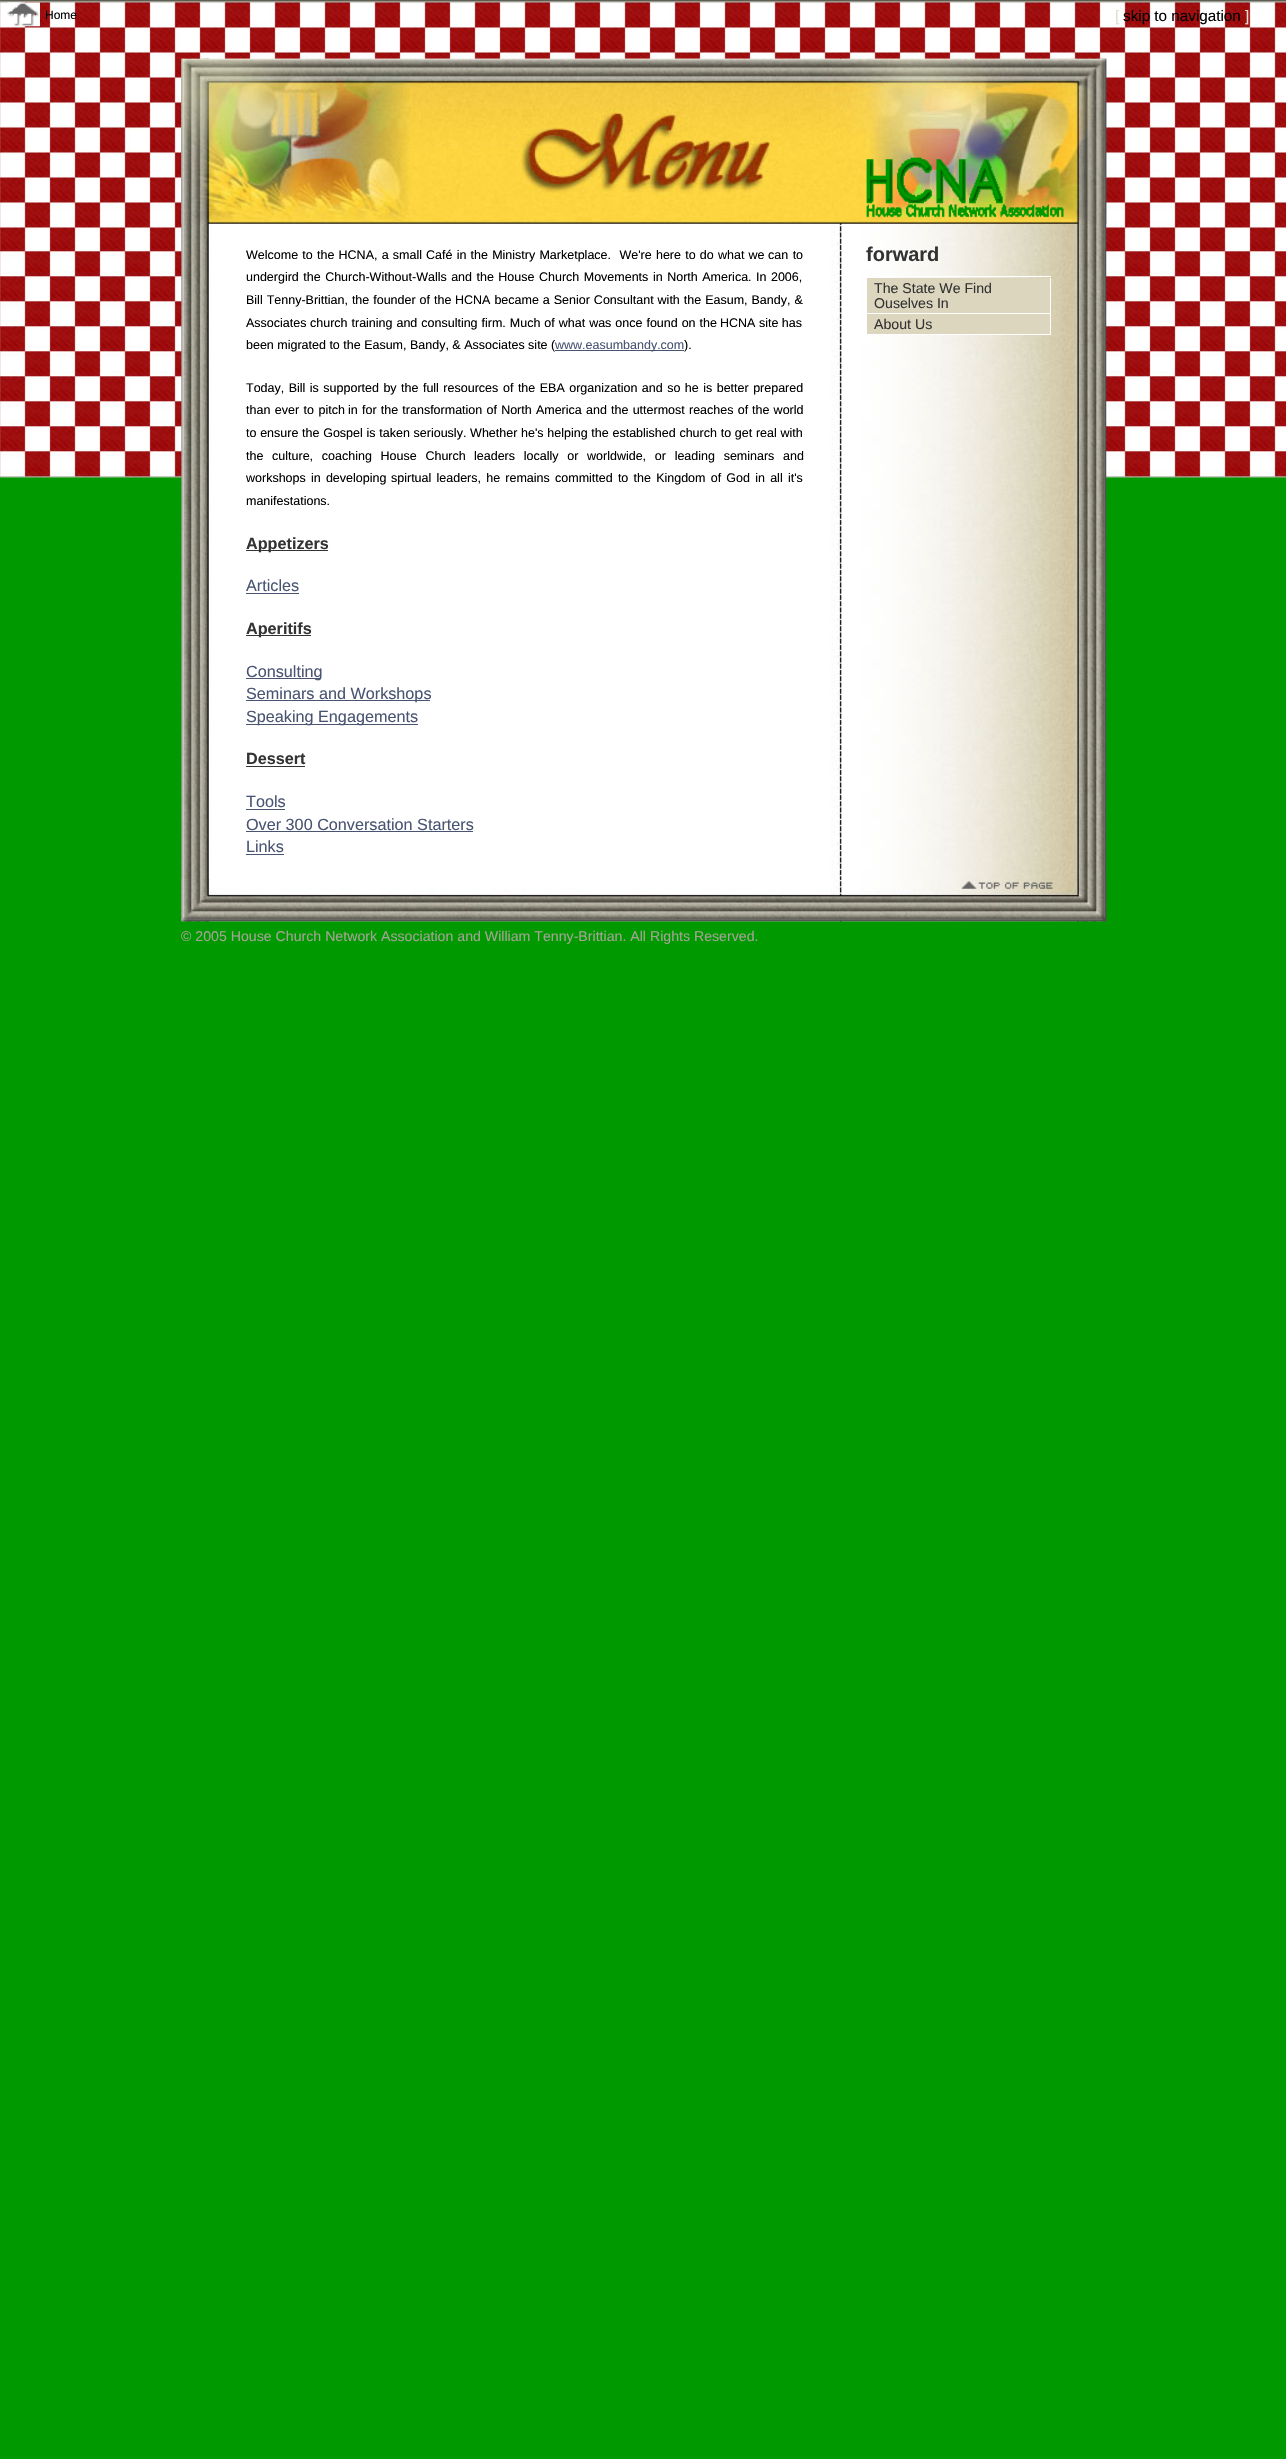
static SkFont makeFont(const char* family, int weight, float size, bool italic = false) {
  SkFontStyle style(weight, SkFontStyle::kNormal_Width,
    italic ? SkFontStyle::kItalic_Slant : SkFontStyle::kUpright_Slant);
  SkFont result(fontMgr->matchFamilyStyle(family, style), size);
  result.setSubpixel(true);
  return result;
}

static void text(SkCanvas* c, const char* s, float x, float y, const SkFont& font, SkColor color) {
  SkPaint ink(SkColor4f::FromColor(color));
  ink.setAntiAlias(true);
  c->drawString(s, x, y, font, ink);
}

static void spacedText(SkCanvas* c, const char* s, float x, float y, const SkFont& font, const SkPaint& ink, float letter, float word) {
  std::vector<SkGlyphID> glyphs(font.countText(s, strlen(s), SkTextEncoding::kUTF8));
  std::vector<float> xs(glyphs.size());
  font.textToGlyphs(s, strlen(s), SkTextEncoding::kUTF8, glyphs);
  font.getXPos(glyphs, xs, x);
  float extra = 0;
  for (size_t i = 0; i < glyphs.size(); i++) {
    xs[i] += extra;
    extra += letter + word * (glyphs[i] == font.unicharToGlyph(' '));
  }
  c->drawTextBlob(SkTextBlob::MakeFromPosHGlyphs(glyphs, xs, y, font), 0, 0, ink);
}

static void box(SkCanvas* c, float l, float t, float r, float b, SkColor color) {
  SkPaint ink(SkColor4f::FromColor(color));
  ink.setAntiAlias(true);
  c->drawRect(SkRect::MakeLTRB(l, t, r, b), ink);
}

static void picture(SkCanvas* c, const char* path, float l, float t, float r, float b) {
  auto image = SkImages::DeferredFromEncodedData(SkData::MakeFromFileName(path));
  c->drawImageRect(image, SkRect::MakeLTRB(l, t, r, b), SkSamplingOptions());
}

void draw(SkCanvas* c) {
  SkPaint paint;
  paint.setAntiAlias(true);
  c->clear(0xff009900);
  picture(c, "img_01.png", 0, 0, 1286, 480);
  picture(c, "img_02.png", 7, 2, 40, 27);
  SkFont face1 = makeFont("Liberation Sans", 400, 12);
  text(c, "Home", 45, 19, face1, 0xff000000);
  SkFont face2 = makeFont("Liberation Sans", 400, 15.25f);
  text(c, "[", 1115, 21, face2, 0xffe2dfcd);
  text(c, "skip to navigation", 1123, 21, face2, 0xff000000);
  text(c, "]", 1245, 21, face2, 0xffe2dfcd);
  picture(c, "img_03.png", 181, 58, 1107, 922);
  picture(c, "img_04.png", 181, 58, 1107, 224);
  picture(c, "img_05.png", 866, 157, 1064, 218);
  SkFont face3 = makeFont("Liberation Sans", 400, 12.5f);
  paint.setColor(0xff000000);
  spacedText(c, "Welcome to the HCNA, a small", 246, 259, face3, paint, 0, 0.75f);
  spacedText(c, "Café in the Ministry Marketplace.  We're here to do what we", 426, 259, face3, paint, 0, 0.75f);
  spacedText(c, "can to", 768, 259, face3, paint, 0, 1);
  spacedText(c, "undergird the Church-Without-Walls and the House Church Movements", 246, 281, face3, paint, 0, 1);
  spacedText(c, "in North America. In 2006,", 653, 281, face3, paint, 0, 1);
  spacedText(c, "Bill Tenny-Brittian, the founder of the", 246, 304, face3, paint, 0, 0.5f);
  spacedText(c, "HCNA became a Senior Consultant with the Easum, Bandy, &", 455, 304, face3, paint, 0, 0.5f);
  text(c, "Associates", 246, 327, face3, 0xff000000);
  spacedText(c, "church training and consulting firm. Much of what was once found on the", 310, 327, face3, paint, 0, 0.5f);
  text(c, "HCNA site has", 720, 327, face3, 0xff000000);
  text(c, "been migrated to the Easum, Bandy, & Associates site (", 246, 349, face3, 0xff000000);
  box(c, 555, 350, 684, 351, 0xff495472);
  text(c, "www.easumbandy.com", 555, 349, face3, 0xff495472);
  text(c, ").", 684, 349, face3, 0xff000000);
  spacedText(c, "Today, Bill is supported by the full resources", 246, 392, face3, paint, 0, 1);
  spacedText(c, "of the EBA organization and so he is better prepared", 503, 392, face3, paint, 0, 1);
  spacedText(c, "than ever to pitch", 246, 414, face3, paint, 0, 1);
  spacedText(c, "in for the transformation of North America and the uttermost reaches of", 348, 414, face3, paint, 0, 0.75f);
  spacedText(c, "the world", 752, 414, face3, paint, 0, 0.75f);
  spacedText(c, "to ensure the Gospel is taken seriously. Whether he's helping the established church to get real with", 246, 437, face3, paint, 0, 0.25f);
  spacedText(c, "the culture, coaching House Church", 246, 460, face3, paint, 0, 5.25f);
  spacedText(c, "leaders locally or worldwide, or leading seminars and", 474, 460, face3, paint, 0, 5.25f);
  spacedText(c, "workshops in developing", 246, 482, face3, paint, 0, 1.75f);
  spacedText(c, "spirtual leaders, he remains committed to the Kingdom of God in all it's", 391, 482, face3, paint, 0, 1.75f);
  text(c, "manifestations.", 246, 505, face3, 0xff000000);
  box(c, 246, 550, 328, 551, 0xff333333);
  SkFont face4 = makeFont("Liberation Sans", 700, 16.2f);
  text(c, "Appetizers", 246, 549, face4, 0xff333333);
  SkFont face5 = makeFont("Liberation Sans", 400, 16.2f);
  text(c, "Articles", 246, 591, face5, 0xff495472);
  box(c, 246, 593, 299, 594, 0xff495472);
  box(c, 246, 635, 311, 636, 0xff333333);
  text(c, "Aperitifs", 246, 634, face4, 0xff333333);
  box(c, 246, 678, 321, 679, 0xff495472);
  text(c, "Consulting", 246, 677, face5, 0xff495472);
  box(c, 246, 700, 430, 701, 0xff495472);
  text(c, "Seminars and Workshops", 246, 699, face5, 0xff495472);
  box(c, 246, 724, 418, 725, 0xff495472);
  text(c, "Speaking Engagements", 246, 722, face5, 0xff495472);
  text(c, "Dessert", 246, 764, face4, 0xff333333);
  box(c, 246, 766, 305, 767, 0xff333333);
  text(c, "Tools", 246, 807, face5, 0xff495472);
  box(c, 246, 809, 285, 810, 0xff495472);
  text(c, "Over 300 Conversation Starters", 246, 830, face5, 0xff495472);
  box(c, 246, 831, 473, 832, 0xff495472);
  text(c, "Links", 246, 852, face5, 0xff495472);
  box(c, 246, 854, 284, 855, 0xff495472);
  SkFont face6 = makeFont("Liberation Sans", 700, 20);
  text(c, "forward", 866, 261, face6, 0xff333333);
  box(c, 881, 276, 1051, 277, 0xffffffff);
  box(c, 867, 278, 1050, 313, 0xffdcd6be);
  box(c, 1050, 278, 1051, 335, 0xffffffff);
  box(c, 866, 313, 1051, 314, 0xffffffff);
  SkFont face7 = makeFont("Liberation Sans", 400, 14.15f);
  text(c, "The State We Find", 874, 293, face7, 0xff333333);
  text(c, "Ouselves In", 874, 308, face7, 0xff333333);
  box(c, 867, 314, 1050, 334, 0xffdcd6be);
  box(c, 866, 334, 1051, 335, 0xffffffff);
  text(c, "About Us", 874, 329, face7, 0xff333333);
  picture(c, "img_06.png", 181, 878, 1107, 922);
  picture(c, "img_07.png", 961, 881, 1053, 889);
  text(c, "© 2005 House Church Network Association and William Tenny-Brittian. All Rights Reserved.", 181, 941, face7, 0xffa5a396);
}
